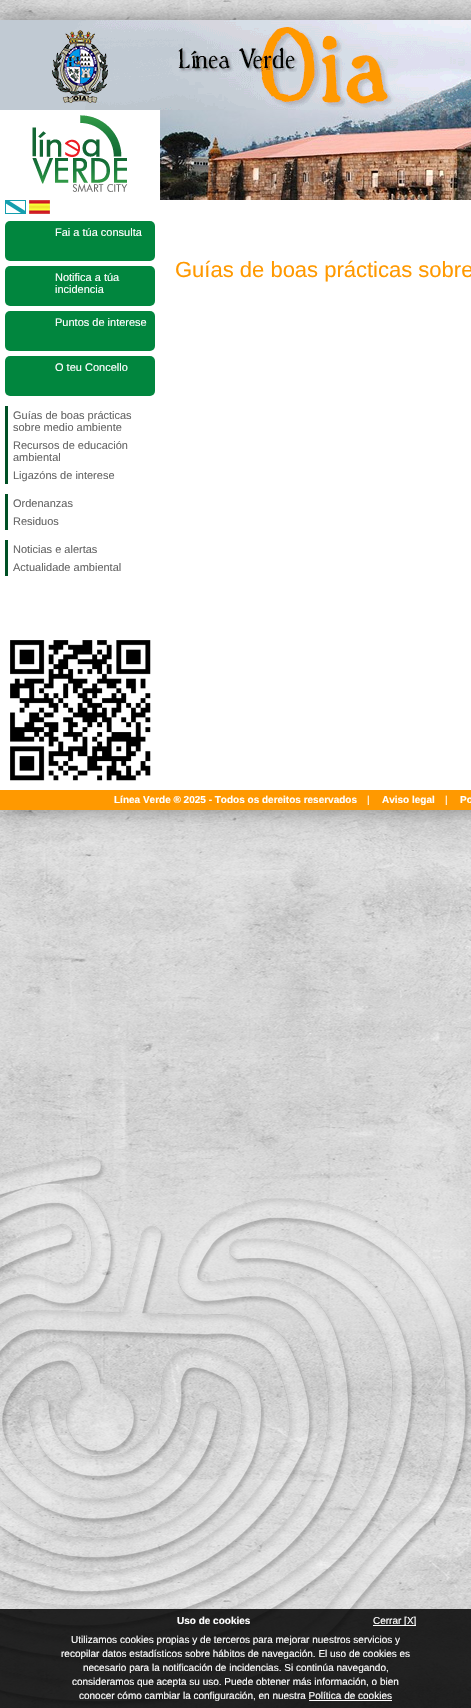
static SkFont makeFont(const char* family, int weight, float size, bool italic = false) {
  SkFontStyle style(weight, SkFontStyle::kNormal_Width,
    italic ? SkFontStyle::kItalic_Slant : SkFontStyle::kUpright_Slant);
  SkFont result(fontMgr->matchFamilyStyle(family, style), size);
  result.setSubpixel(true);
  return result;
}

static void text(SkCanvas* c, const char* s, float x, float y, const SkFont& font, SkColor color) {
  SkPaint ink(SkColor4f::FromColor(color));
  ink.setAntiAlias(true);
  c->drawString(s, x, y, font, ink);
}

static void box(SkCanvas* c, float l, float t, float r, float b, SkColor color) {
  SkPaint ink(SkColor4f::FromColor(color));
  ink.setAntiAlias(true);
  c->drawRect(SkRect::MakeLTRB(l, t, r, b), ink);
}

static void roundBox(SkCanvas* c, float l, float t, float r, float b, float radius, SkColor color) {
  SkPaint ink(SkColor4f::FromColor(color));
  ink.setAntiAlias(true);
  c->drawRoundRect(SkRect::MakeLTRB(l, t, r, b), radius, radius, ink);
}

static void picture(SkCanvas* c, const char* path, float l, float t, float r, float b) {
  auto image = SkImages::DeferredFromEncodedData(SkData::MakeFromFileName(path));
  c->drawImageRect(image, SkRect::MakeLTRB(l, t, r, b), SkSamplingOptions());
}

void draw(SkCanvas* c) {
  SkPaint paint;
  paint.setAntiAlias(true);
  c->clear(0xffffffff);
  picture(c, "img_01.png", 0, 0, 471, 1708);
  paint.setColor(0x66000000);
  paint.setMaskFilter(SkMaskFilter::MakeBlur(kNormal_SkBlurStyle, 10));
  c->drawRect(SkRect::MakeLTRB(0, 20, 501, 810), paint);
  paint.setMaskFilter(nullptr);
  box(c, 0, 110, 471, 790, 0xffffffff);
  picture(c, "img_02.png", 0, 20, 471, 110);
  picture(c, "img_03.png", 32, 115, 128, 192);
  picture(c, "img_04.png", 160, 110, 471, 200);
  picture(c, "img_05.png", 5, 200, 26, 214);
  picture(c, "img_06.png", 29, 200, 50, 214);
  roundBox(c, 5, 221, 155, 261, 5, 0xff01863e);
  SkFont face1 = makeFont("Liberation Sans", 400, 11);
  text(c, "Fai a túa consulta", 55, 236, face1, 0xffffffff);
  roundBox(c, 5, 266, 155, 306, 5, 0xff01863e);
  text(c, "Notifica a túa", 55, 281, face1, 0xffffffff);
  text(c, "incidencia", 55, 293, face1, 0xffffffff);
  roundBox(c, 5, 311, 155, 351, 5, 0xff01863e);
  text(c, "Puntos de interese", 55, 326, face1, 0xffffffff);
  roundBox(c, 5, 356, 155, 396, 5, 0xff01863e);
  text(c, "O teu Concello", 55, 371, face1, 0xffffffff);
  box(c, 5, 406, 8, 484, 0xff005025);
  text(c, "Guías de boas prácticas", 13, 419, face1, 0xff666666);
  text(c, "sobre medio ambiente", 13, 431, face1, 0xff666666);
  text(c, "Recursos de educación", 13, 449, face1, 0xff666666);
  text(c, "ambiental", 13, 461, face1, 0xff666666);
  text(c, "Ligazóns de interese", 13, 479, face1, 0xff666666);
  box(c, 5, 494, 8, 530, 0xff005025);
  text(c, "Ordenanzas", 13, 507, face1, 0xff666666);
  text(c, "Residuos", 13, 525, face1, 0xff666666);
  box(c, 5, 540, 8, 576, 0xff005025);
  text(c, "Noticias e alertas", 13, 553, face1, 0xff666666);
  text(c, "Actualidade ambiental", 13, 571, face1, 0xff666666);
  picture(c, "img_07.png", 10, 640, 151, 781);
  SkFont face2 = makeFont("Liberation Sans", 400, 22);
  text(c, "Guías de boas prácticas sobre", 175, 277, face2, 0xffff9900);
  box(c, 0, 790, 471, 810, 0xffff9900);
  SkFont face3 = makeFont("Liberation Sans", 700, 10);
  text(c, "Línea Verde ® 2025 - Todos os dereitos reservados", 114, 803, face3, 0xffffffff);
  SkFont face4 = makeFont("Liberation Sans", 400, 10);
  text(c, "|", 367, 803, face4, 0xffffffff);
  text(c, "Aviso legal", 382, 803, face3, 0xffffffff);
  text(c, "|", 445, 803, face4, 0xffffffff);
  text(c, "Po", 460, 803, face3, 0xffffffff);
  box(c, 0, 1609, 471, 1708, 0xd9000000);
  text(c, "Uso de cookies", 177, 1624, face3, 0xffffffff);
  box(c, 373, 1625, 416, 1626, 0xffffffff);
  text(c, "Cerrar [X]", 373, 1624, face4, 0xffffffff);
  text(c, "Utilizamos cookies propias y de terceros para mejorar nuestros servicios y", 71, 1643, face4, 0xffffffff);
  text(c, "recopilar datos estadísticos sobre hábitos de navegación. El uso de cookies es", 61, 1657, face4, 0xffffffff);
  text(c, "necesario para la notificación de incidencias. Si continúa navegando,", 83, 1671, face4, 0xffffffff);
  text(c, "consideramos que acepta su uso. Puede obtener más información, o bien", 72, 1685, face4, 0xffffffff);
  text(c, "conocer cómo cambiar la configuración, en nuestra Política de cookies", 79, 1699, face4, 0xffffffff);
  box(c, 309, 1700, 392, 1701, 0xffffffff);
}
